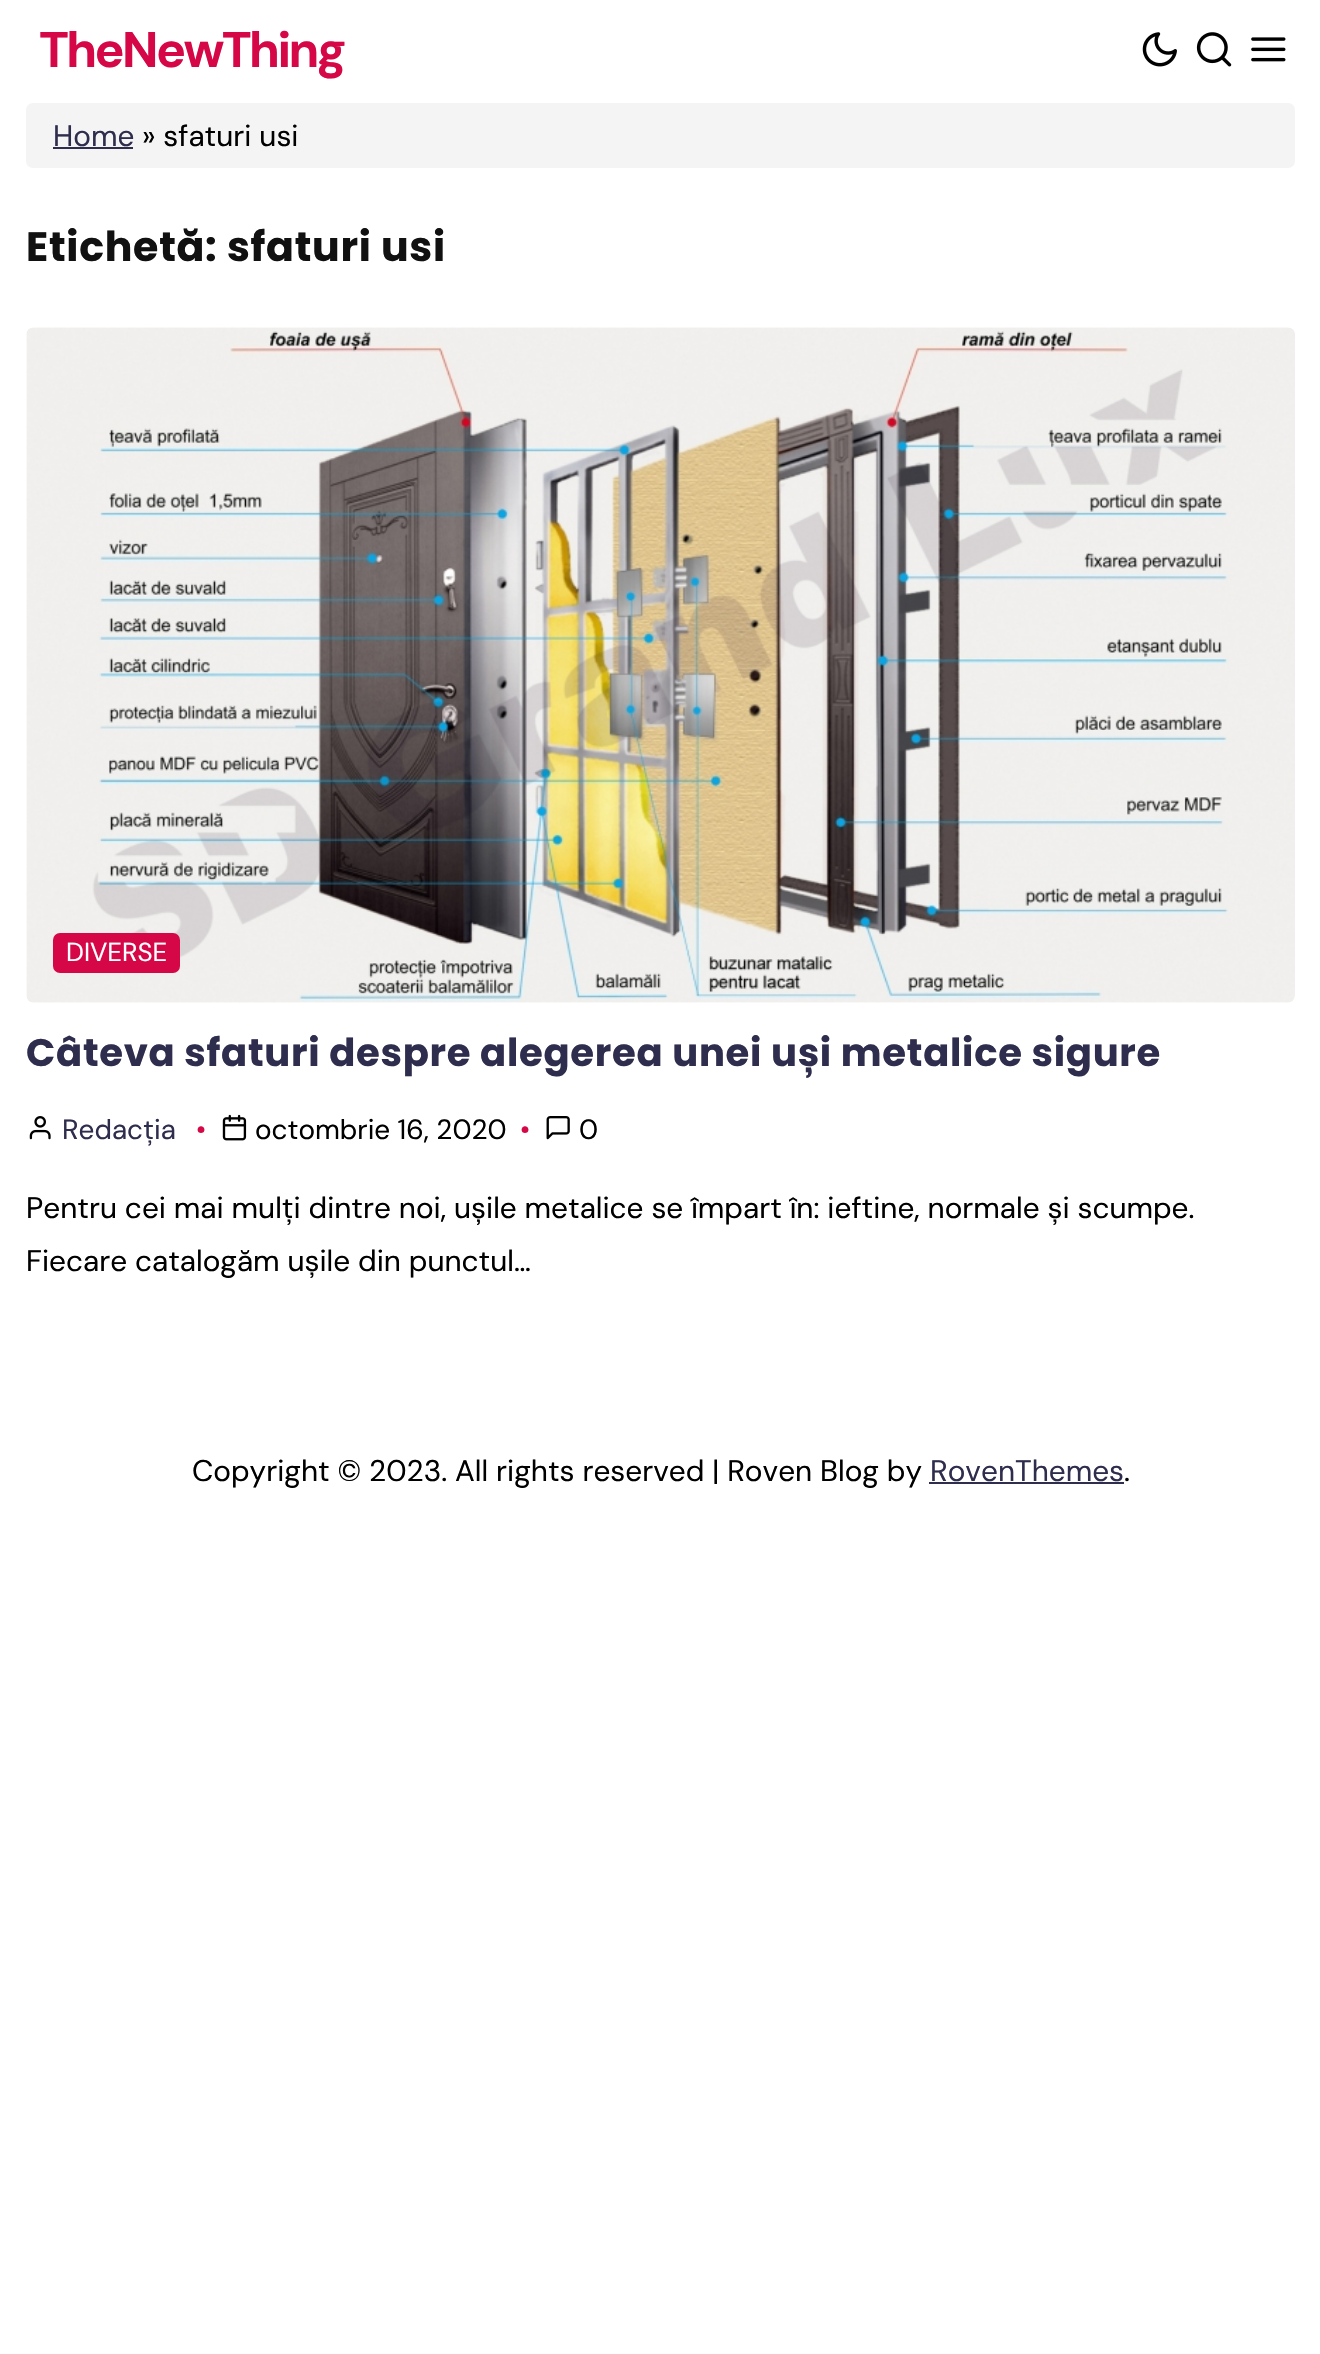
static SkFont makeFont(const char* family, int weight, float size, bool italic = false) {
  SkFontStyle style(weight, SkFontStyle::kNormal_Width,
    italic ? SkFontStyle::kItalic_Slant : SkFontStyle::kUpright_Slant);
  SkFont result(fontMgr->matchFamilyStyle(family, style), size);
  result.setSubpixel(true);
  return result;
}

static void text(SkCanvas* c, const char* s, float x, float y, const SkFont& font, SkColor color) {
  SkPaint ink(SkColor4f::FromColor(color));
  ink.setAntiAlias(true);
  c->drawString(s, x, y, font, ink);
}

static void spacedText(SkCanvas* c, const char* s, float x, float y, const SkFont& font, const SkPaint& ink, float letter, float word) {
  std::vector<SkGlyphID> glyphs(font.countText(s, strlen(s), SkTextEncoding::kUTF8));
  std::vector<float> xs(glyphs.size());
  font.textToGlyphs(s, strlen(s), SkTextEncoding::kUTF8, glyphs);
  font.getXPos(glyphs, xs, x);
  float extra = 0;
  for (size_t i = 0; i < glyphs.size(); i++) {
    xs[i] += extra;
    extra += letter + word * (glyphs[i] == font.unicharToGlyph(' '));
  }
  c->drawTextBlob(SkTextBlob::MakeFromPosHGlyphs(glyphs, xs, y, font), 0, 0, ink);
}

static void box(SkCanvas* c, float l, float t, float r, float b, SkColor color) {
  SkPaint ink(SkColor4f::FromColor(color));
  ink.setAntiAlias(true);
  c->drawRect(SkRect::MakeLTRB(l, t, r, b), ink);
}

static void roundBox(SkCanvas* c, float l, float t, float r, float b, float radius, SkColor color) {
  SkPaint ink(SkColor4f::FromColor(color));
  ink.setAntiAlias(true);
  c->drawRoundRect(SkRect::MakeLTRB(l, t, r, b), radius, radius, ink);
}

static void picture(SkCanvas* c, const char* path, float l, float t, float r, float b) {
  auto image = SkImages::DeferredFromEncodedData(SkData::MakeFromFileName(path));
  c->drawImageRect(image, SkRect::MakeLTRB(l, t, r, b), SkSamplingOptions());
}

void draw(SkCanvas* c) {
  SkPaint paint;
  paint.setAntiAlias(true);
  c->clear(0xffffffff);
  SkFont face1 = makeFont("DM Sans", 700, 50);
  paint.setColor(0xffd50747);
  spacedText(c, "TheNewThing", 39, 67, face1, paint, -2.6f, 0);
  picture(c, "img_01.png", 1142, 32, 1177, 67);
  picture(c, "img_02.png", 1196, 32, 1232, 67);
  picture(c, "img_03.png", 1251, 37, 1286, 62);
  roundBox(c, 26, 103, 1295, 168, 7, 0xfff4f4f4);
  SkFont face2 = makeFont("DM Sans", 400, 29.75f);
  text(c, "Home", 53, 146, face2, 0xff2e2d4d);
  box(c, 53, 147, 133, 149, 0xff2e2d4d);
  text(c, "» sfaturi usi", 142, 146, face2, 0xff000000);
  SkFont face3 = makeFont("Poppins", 700, 41.1f);
  paint.setColor(0xff111111);
  spacedText(c, "Etichetă: sfaturi usi", 26, 261, face3, paint, 0.7f, 0);
  picture(c, "img_04.png", 26, 327, 1295, 1003);
  roundBox(c, 53, 933, 180, 973, 7, 0xffd50747);
  SkFont face4 = makeFont("DM Sans", 400, 26);
  text(c, "DIVERSE", 66, 961, face4, 0xffffffff);
  SkFont face5 = makeFont("Poppins", 700, 38.55f);
  paint.setColor(0xff2e2d4d);
  spacedText(c, "Câteva sfaturi despre alegerea unei uși metalice sigure", 26, 1066, face5, paint, 0.7f, 0);
  picture(c, "img_05.png", 29, 1116, 51, 1140);
  SkFont face6 = makeFont("DM Sans", 400, 27.9f);
  text(c, "Redacția", 62, 1139, face6, 0xff2e2d4d);
  text(c, "•", 196, 1139, face6, 0xffd50747);
  picture(c, "img_06.png", 222, 1114, 247, 1141);
  text(c, "octombrie 16, 2020", 255, 1139, face6, 0xff000000);
  text(c, "•", 520, 1139, face6, 0xffd50747);
  picture(c, "img_07.png", 546, 1116, 570, 1140);
  text(c, "0", 579, 1139, face6, 0xff000000);
  text(c, "Pentru cei mai mulți dintre noi, ușile metalice se împart în: ieftine, normale și scumpe.", 26, 1218, face2, 0xff000000);
  text(c, "Fiecare catalogăm ușile din punctul…", 26, 1271, face2, 0xff000000);
  text(c, "Copyright © 2023. All rights reserved | Roven Blog by", 192, 1481, face2, 0xff000000);
  text(c, "RovenThemes", 930, 1481, face2, 0xff2e2d4d);
  box(c, 929, 1482, 1124, 1484, 0xff2e2d4d);
  text(c, ".", 1124, 1481, face2, 0xff000000);
}
